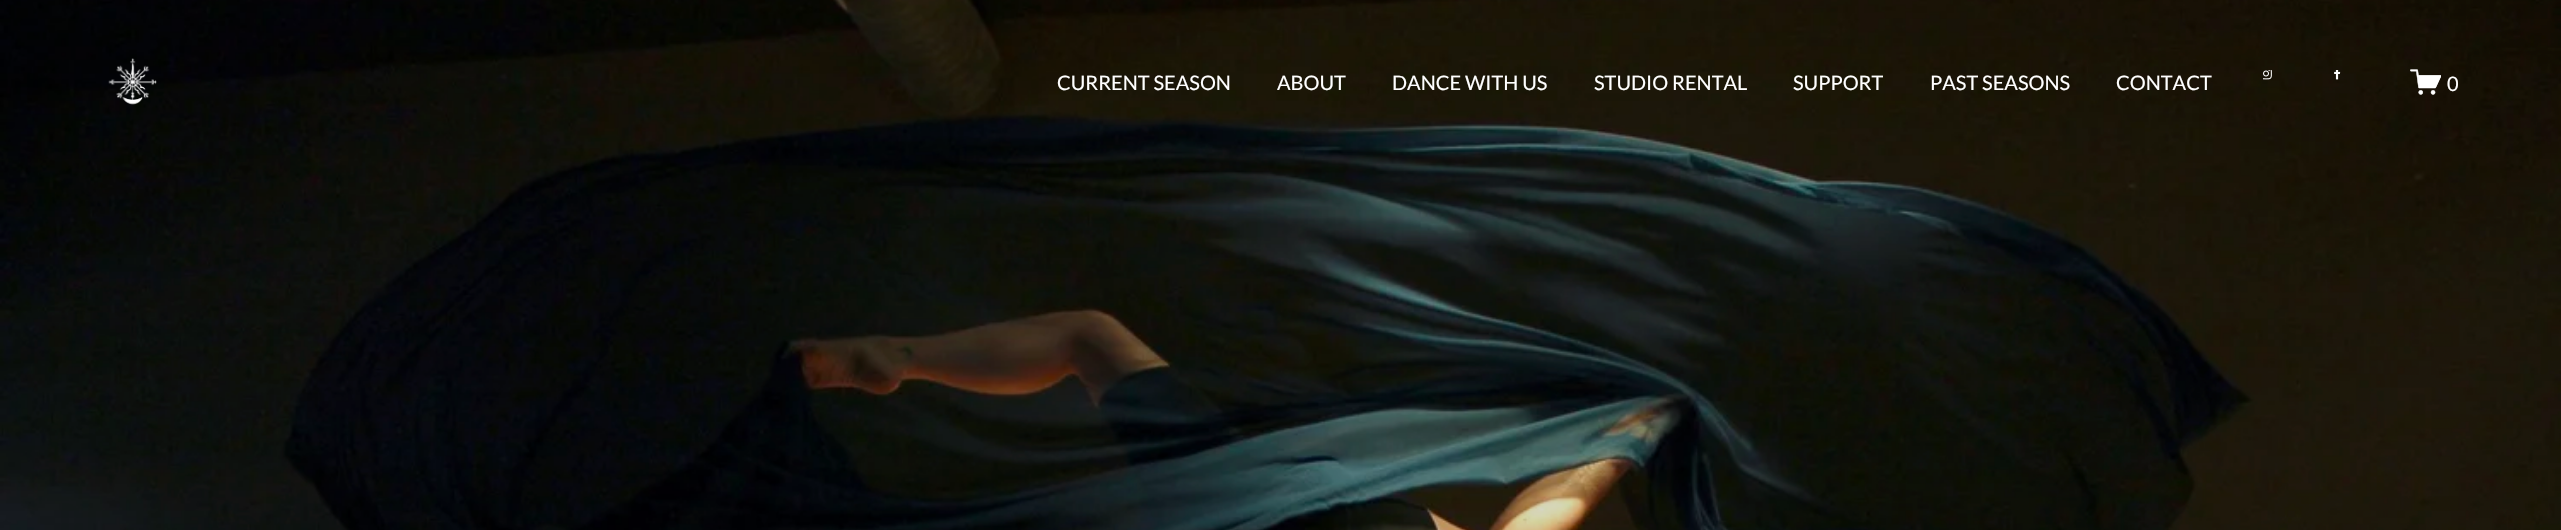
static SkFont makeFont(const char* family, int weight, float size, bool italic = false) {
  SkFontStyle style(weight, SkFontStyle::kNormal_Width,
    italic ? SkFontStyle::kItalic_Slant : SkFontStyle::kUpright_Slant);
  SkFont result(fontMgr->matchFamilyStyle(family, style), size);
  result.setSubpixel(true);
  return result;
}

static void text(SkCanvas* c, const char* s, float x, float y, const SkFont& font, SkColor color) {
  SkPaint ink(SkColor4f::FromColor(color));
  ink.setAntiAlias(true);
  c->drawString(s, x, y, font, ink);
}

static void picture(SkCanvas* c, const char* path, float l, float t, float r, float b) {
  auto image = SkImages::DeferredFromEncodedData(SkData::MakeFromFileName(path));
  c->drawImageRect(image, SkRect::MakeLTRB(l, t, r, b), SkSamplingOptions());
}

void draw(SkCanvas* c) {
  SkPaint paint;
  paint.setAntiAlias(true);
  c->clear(0xffffffff);
  picture(c, "img_01.png", 0, 0, 2561, 530);
  picture(c, "img_02.png", 108, 58, 157, 105);
  SkFont face1 = makeFont("Lato", 400, 20);
  text(c, "CURRENT SEASON", 1057, 90, face1, 0xffffffff);
  text(c, "ABOUT", 1277, 90, face1, 0xffffffff);
  text(c, "DANCE WITH US", 1392, 90, face1, 0xffffffff);
  text(c, "STUDIO RENTAL", 1594, 90, face1, 0xffffffff);
  text(c, "SUPPORT", 1793, 90, face1, 0xffffffff);
  text(c, "PAST SEASONS", 1930, 90, face1, 0xffffffff);
  text(c, "CONTACT", 2116, 90, face1, 0xffffffff);
  picture(c, "img_03.png", 2263, 70, 2272, 80);
  picture(c, "img_04.png", 2334, 70, 2341, 80);
  picture(c, "img_05.png", 2410, 69, 2441, 95);
  text(c, "0", 2447, 91, face1, 0xffffffff);
}
